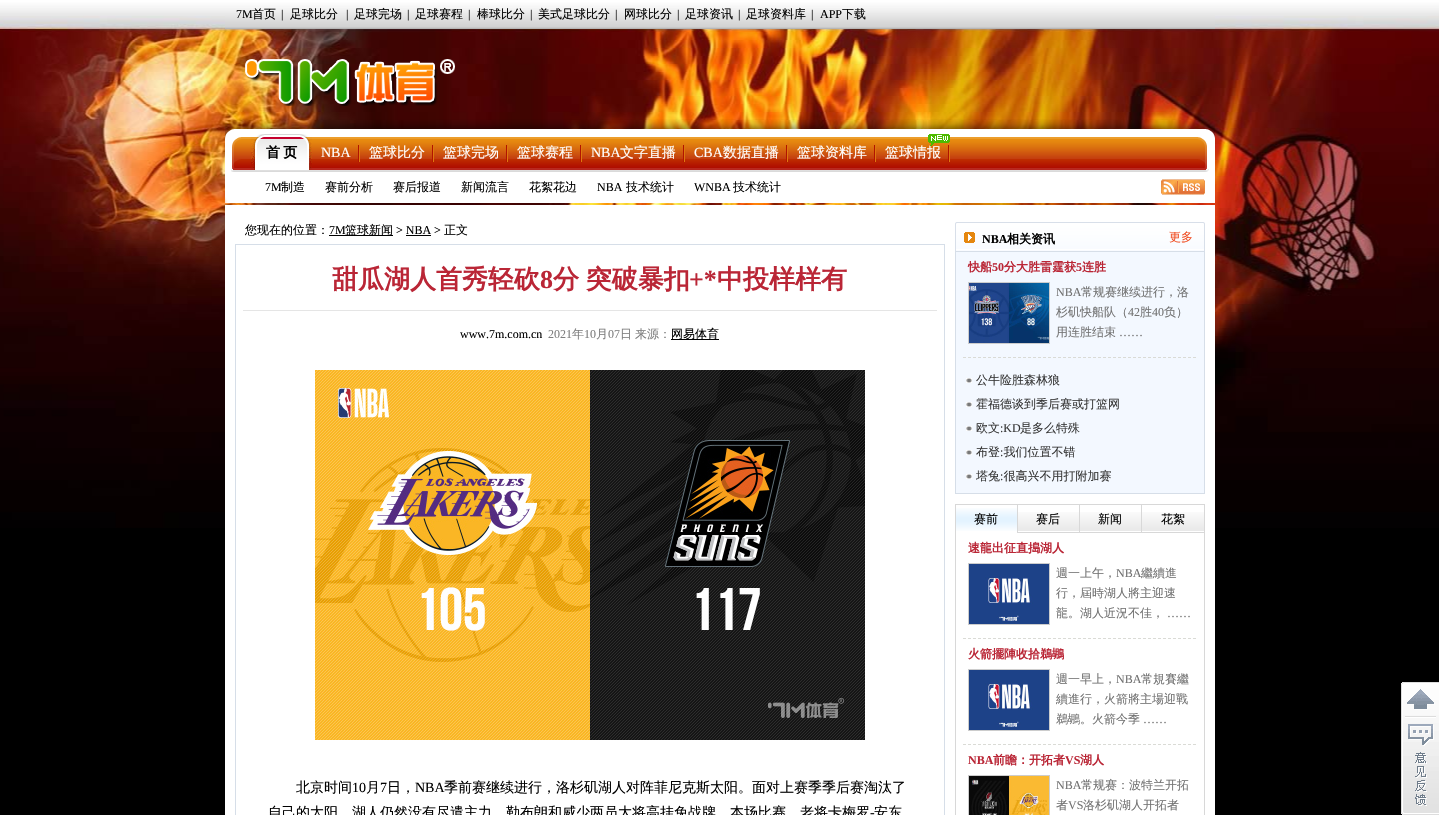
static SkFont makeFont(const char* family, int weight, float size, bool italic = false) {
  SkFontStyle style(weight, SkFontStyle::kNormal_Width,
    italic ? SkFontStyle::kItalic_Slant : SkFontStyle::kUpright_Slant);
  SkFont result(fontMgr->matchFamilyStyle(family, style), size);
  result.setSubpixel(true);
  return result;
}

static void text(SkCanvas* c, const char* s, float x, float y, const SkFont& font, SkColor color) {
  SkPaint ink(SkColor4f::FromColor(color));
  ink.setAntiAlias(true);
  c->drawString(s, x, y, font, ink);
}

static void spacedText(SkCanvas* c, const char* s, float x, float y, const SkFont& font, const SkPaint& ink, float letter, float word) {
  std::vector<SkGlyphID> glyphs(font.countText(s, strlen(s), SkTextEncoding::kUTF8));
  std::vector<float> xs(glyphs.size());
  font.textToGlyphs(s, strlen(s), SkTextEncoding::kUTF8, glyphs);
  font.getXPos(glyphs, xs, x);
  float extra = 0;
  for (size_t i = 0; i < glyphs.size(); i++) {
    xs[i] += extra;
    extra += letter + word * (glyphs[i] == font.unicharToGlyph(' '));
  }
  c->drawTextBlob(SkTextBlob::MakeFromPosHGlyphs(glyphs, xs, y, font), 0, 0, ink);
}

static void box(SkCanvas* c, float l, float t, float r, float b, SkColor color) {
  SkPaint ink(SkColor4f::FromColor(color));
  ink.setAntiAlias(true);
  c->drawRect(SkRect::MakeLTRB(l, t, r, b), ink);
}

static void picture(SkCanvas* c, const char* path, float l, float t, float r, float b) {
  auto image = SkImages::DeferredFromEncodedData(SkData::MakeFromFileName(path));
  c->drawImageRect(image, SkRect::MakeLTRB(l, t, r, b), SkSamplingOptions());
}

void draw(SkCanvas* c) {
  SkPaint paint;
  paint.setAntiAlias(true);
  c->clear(0xff000000);
  picture(c, "img_01.png", 0, 0, 1439, 528);
  picture(c, "img_02.png", 225, 15, 1215, 29);
  SkFont face1 = makeFont("Liberation Serif", 400, 12);
  text(c, "7M", 236, 18, face1, 0xff000000);
  SkFont face2 = makeFont("WenQuanYi Zen Hei", 500, 12);
  text(c, "首页", 252, 18, face2, 0xff000000);
  text(c, "|", 281, 18, face1, 0xff000000);
  text(c, "足球比分", 290, 18, face2, 0xff000000);
  text(c, "|", 346, 18, face1, 0xff000000);
  text(c, "足球完场", 354, 18, face2, 0xff000000);
  text(c, "|", 407, 18, face1, 0xff000000);
  text(c, "足球赛程", 415, 18, face2, 0xff000000);
  text(c, "|", 468, 18, face1, 0xff000000);
  text(c, "棒球比分", 477, 18, face2, 0xff000000);
  text(c, "|", 530, 18, face1, 0xff000000);
  text(c, "美式足球比分", 538, 18, face2, 0xff000000);
  text(c, "|", 615, 18, face1, 0xff000000);
  text(c, "网球比分", 624, 18, face2, 0xff000000);
  text(c, "|", 677, 18, face1, 0xff000000);
  text(c, "足球资讯", 685, 18, face2, 0xff000000);
  text(c, "|", 738, 18, face1, 0xff000000);
  text(c, "足球资料库", 746, 18, face2, 0xff000000);
  text(c, "|", 811, 18, face1, 0xff000000);
  text(c, "APP", 820, 18, face1, 0xff000000);
  text(c, "下载", 842, 18, face2, 0xff000000);
  picture(c, "img_03.png", 245, 59, 455, 106);
  picture(c, "img_04.png", 225, 119, 1215, 203);
  picture(c, "img_05.png", 231, 137, 1209, 172);
  picture(c, "img_06.png", 251, 134, 266, 170);
  picture(c, "img_07.png", 266, 134, 312, 170);
  SkFont face3 = makeFont("WenQuanYi Zen Hei", 700, 14);
  paint.setColor(0xff000000);
  spacedText(c, "首 页", 266, 157, face3, paint, 0, -1);
  picture(c, "img_08.png", 358, 145, 360, 162);
  SkFont face4 = makeFont("Liberation Serif", 400, 14);
  text(c, "NBA", 321, 157, face4, 0xffffffff);
  picture(c, "img_08.png", 432, 145, 434, 162);
  SkFont face5 = makeFont("WenQuanYi Zen Hei", 500, 14);
  text(c, "篮球比分", 369, 157, face5, 0xffffffff);
  picture(c, "img_08.png", 506, 145, 508, 162);
  text(c, "篮球完场", 443, 157, face5, 0xffffffff);
  picture(c, "img_08.png", 580, 145, 582, 162);
  text(c, "篮球赛程", 517, 157, face5, 0xffffffff);
  picture(c, "img_08.png", 683, 145, 685, 162);
  text(c, "NBA", 591, 157, face4, 0xffffffff);
  text(c, "文字直播", 620, 157, face5, 0xffffffff);
  picture(c, "img_08.png", 786, 145, 788, 162);
  text(c, "CBA", 694, 157, face4, 0xffffffff);
  text(c, "数据直播", 723, 157, face5, 0xffffffff);
  picture(c, "img_08.png", 874, 145, 876, 162);
  text(c, "篮球资料库", 797, 157, face5, 0xffffffff);
  picture(c, "img_08.png", 948, 145, 950, 162);
  text(c, "篮球情报", 885, 157, face5, 0xffffffff);
  picture(c, "img_09.png", 928, 134, 950, 146);
  text(c, "7M", 265, 191, face1, 0xff000000);
  text(c, "制造", 281, 191, face2, 0xff000000);
  text(c, "赛前分析", 325, 191, face2, 0xff000000);
  text(c, "赛后报道", 393, 191, face2, 0xff000000);
  text(c, "新闻流言", 461, 191, face2, 0xff000000);
  text(c, "花絮花边", 529, 191, face2, 0xff000000);
  text(c, "NBA", 597, 191, face1, 0xff000000);
  text(c, "技术统计", 626, 191, face2, 0xff000000);
  text(c, "WNBA", 694, 191, face1, 0xff000000);
  text(c, "技术统计", 733, 191, face2, 0xff000000);
  picture(c, "img_10.png", 1161, 179, 1205, 195);
  box(c, 225, 205, 1215, 815, 0xffffffff);
  text(c, "您现在的位置：", 245, 234, face2, 0xff000000);
  text(c, "7M", 329, 234, face1, 0xff000000);
  box(c, 329, 235, 393, 236, 0xff000000);
  text(c, "篮球新闻", 345, 234, face2, 0xff000000);
  text(c, "> NBA >", 396, 234, face1, 0xff000000);
  box(c, 406, 235, 431, 236, 0xff000000);
  text(c, "正文", 444, 234, face2, 0xff000000);
  paint.setStyle(SkPaint::kStroke_Style);
  paint.setStrokeWidth(1);
  paint.setColor(0xffd6dee8);
  c->drawRect(SkRect::MakeLTRB(235.5f, 244.5f, 944.5f, 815.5f), paint);
  SkFont face6 = makeFont("WenQuanYi Zen Hei", 700, 26);
  text(c, "甜瓜湖人首秀轻砍", 332, 288, face6, 0xffba2636);
  SkFont face7 = makeFont("Liberation Serif", 700, 26);
  text(c, "8", 540, 288, face7, 0xffba2636);
  paint.setStyle(SkPaint::kFill_Style);
  paint.setColor(0xffba2636);
  spacedText(c, "分 突破暴扣", 553, 288, face6, paint, 0, -1);
  text(c, "+*", 689, 288, face7, 0xffba2636);
  text(c, "中投样样有", 717, 288, face6, 0xffba2636);
  box(c, 243, 310, 937, 311, 0xffe5e5e5);
  text(c, "www.7m.com.cn", 460, 338, face1, 0xff000000);
  text(c, "2021", 548, 338, face1, 0xff7e7e7e);
  text(c, "年", 572, 338, face2, 0xff7e7e7e);
  text(c, "10", 584, 338, face1, 0xff7e7e7e);
  text(c, "月", 596, 338, face2, 0xff7e7e7e);
  text(c, "07", 608, 338, face1, 0xff7e7e7e);
  text(c, "日", 620, 338, face2, 0xff7e7e7e);
  text(c, "来源：", 635, 338, face2, 0xff7e7e7e);
  box(c, 671, 339, 719, 340, 0xff000000);
  text(c, "网易体育", 671, 338, face2, 0xff000000);
  picture(c, "img_11.png", 315, 370, 865, 740);
  text(c, "北京时间", 296, 792, face5, 0xff000000);
  text(c, "10", 352, 792, face4, 0xff000000);
  text(c, "月", 366, 792, face5, 0xff000000);
  text(c, "7", 380, 792, face4, 0xff000000);
  text(c, "日，", 387, 792, face5, 0xff000000);
  text(c, "NBA", 415, 792, face4, 0xff000000);
  text(c, "季前赛继续进行，洛杉矶湖人对阵菲尼克斯太阳。面对上赛季季后赛淘汰了", 444, 792, face5, 0xff000000);
  text(c, "自己的太阳，湖人仍然没有尽遣主力，勒布朗和威少两员大将高挂免战牌。本场比赛，老将卡梅罗", 268, 817, face5, 0xff000000);
  text(c, "-", 870, 817, face4, 0xff000000);
  text(c, "安东", 874, 817, face5, 0xff000000);
  picture(c, "img_12.png", 955, 222, 1205, 251);
  SkFont face8 = makeFont("Liberation Serif", 700, 12);
  text(c, "NBA", 982, 243, face8, 0xff000000);
  SkFont face9 = makeFont("WenQuanYi Zen Hei", 700, 12);
  text(c, "相关资讯", 1007, 243, face9, 0xff000000);
  text(c, "更多", 1169, 241, face2, 0xfff04e23);
  paint.setColor(0xfff3f8ff);
  c->drawRect(SkRect::MakeLTRB(955.5f, 251.5f, 1204.5f, 493.5f), paint);
  paint.setStyle(SkPaint::kStroke_Style);
  paint.setColor(0xffd6dee8);
  c->drawRect(SkRect::MakeLTRB(955.5f, 251.5f, 1204.5f, 493.5f), paint);
  paint.setColor(0xffdadbd6);
  paint.setPathEffect(SkDashPathEffect::Make({{3, 2}}, 0));
  c->drawPath(SkPathBuilder().moveTo(963, 357.5f).lineTo(1196, 357.5f).detach(), paint);
  paint.setPathEffect(nullptr);
  text(c, "快船", 968, 271, face9, 0xffba2636);
  text(c, "50", 992, 271, face8, 0xffba2636);
  text(c, "分大胜雷霆获", 1004, 271, face9, 0xffba2636);
  text(c, "5", 1076, 271, face8, 0xffba2636);
  text(c, "连胜", 1082, 271, face9, 0xffba2636);
  paint.setColor(0xffcccccc);
  c->drawRect(SkRect::MakeLTRB(968.5f, 282.5f, 1049.5f, 343.5f), paint);
  picture(c, "img_13.png", 969, 283, 1049, 343);
  text(c, "NBA", 1056, 296, face1, 0xff727272);
  text(c, "常规赛继续进行，洛", 1081, 296, face2, 0xff727272);
  text(c, "杉矶快船队（", 1056, 316, face2, 0xff727272);
  text(c, "42", 1128, 316, face1, 0xff727272);
  text(c, "胜", 1140, 316, face2, 0xff727272);
  text(c, "40", 1152, 316, face1, 0xff727272);
  text(c, "负）", 1164, 316, face2, 0xff727272);
  text(c, "用连胜结束", 1056, 336, face2, 0xff727272);
  text(c, "……", 1119, 336, face1, 0xff727272);
  picture(c, "img_14.png", 966, 378, 972, 383);
  text(c, "公牛险胜森林狼", 976, 384, face2, 0xff383838);
  picture(c, "img_14.png", 966, 402, 972, 407);
  text(c, "霍福德谈到季后赛或打篮网", 976, 408, face2, 0xff383838);
  picture(c, "img_14.png", 966, 426, 972, 431);
  text(c, "欧文", 976, 432, face2, 0xff383838);
  text(c, ":KD", 1000, 432, face1, 0xff383838);
  text(c, "是多么特殊", 1020, 432, face2, 0xff383838);
  picture(c, "img_14.png", 966, 450, 972, 455);
  text(c, "布登 我们位置不错", 976, 456, face2, 0xff383838);
  text(c, ":", 1000, 456, face1, 0xff383838);
  picture(c, "img_14.png", 966, 474, 972, 479);
  text(c, "塔兔 很高兴不用打附加赛", 976, 480, face2, 0xff383838);
  text(c, ":", 1000, 480, face1, 0xff383838);
  paint.setColor(0xffd8d8d8);
  c->drawRect(SkRect::MakeLTRB(955.5f, 504.5f, 1204.5f, 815.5f), paint);
  picture(c, "img_15.png", 956, 508, 1017, 531);
  box(c, 1017, 505, 1018, 533, 0xffd8d8d8);
  text(c, "赛前", 974, 523, face2, 0xff000000);
  picture(c, "img_16.png", 1018, 512, 1079, 533);
  box(c, 1079, 505, 1080, 533, 0xffd8d8d8);
  text(c, "赛后", 1036, 523, face2, 0xff000000);
  picture(c, "img_16.png", 1080, 512, 1141, 533);
  box(c, 1141, 505, 1142, 533, 0xffd8d8d8);
  text(c, "新闻", 1098, 523, face2, 0xff000000);
  picture(c, "img_17.png", 1142, 512, 1204, 533);
  text(c, "花絮", 1161, 523, face2, 0xff000000);
  paint.setColor(0xffdadbd6);
  paint.setPathEffect(SkDashPathEffect::Make({{3, 2}}, 0));
  c->drawPath(SkPathBuilder().moveTo(963, 638.5f).lineTo(1196, 638.5f).detach(), paint);
  paint.setPathEffect(nullptr);
  text(c, "速龍出征直搗湖人", 968, 552, face9, 0xffba2636);
  paint.setColor(0xffcccccc);
  c->drawRect(SkRect::MakeLTRB(968.5f, 563.5f, 1049.5f, 624.5f), paint);
  picture(c, "img_18.png", 969, 564, 1049, 624);
  text(c, "週一上午，", 1056, 577, face2, 0xff727272);
  text(c, "NBA", 1116, 577, face1, 0xff727272);
  text(c, "繼續進", 1141, 577, face2, 0xff727272);
  text(c, "行，屆時湖人將主迎速", 1056, 597, face2, 0xff727272);
  text(c, "龍。湖人近況不佳，", 1056, 617, face2, 0xff727272);
  text(c, "……", 1167, 617, face1, 0xff727272);
  paint.setColor(0xffdadbd6);
  paint.setPathEffect(SkDashPathEffect::Make({{3, 2}}, 0));
  c->drawPath(SkPathBuilder().moveTo(963, 744.5f).lineTo(1196, 744.5f).detach(), paint);
  paint.setPathEffect(nullptr);
  text(c, "火箭擺陣收拾鵜鶘", 968, 658, face9, 0xffba2636);
  paint.setColor(0xffcccccc);
  c->drawRect(SkRect::MakeLTRB(968.5f, 669.5f, 1049.5f, 730.5f), paint);
  picture(c, "img_18.png", 969, 670, 1049, 730);
  text(c, "週一早上，", 1056, 683, face2, 0xff727272);
  text(c, "NBA", 1116, 683, face1, 0xff727272);
  text(c, "常規賽繼", 1141, 683, face2, 0xff727272);
  c->save();
  c->clipRect(SkRect::MakeLTRB(1056, 669, 1191, 729));
  text(c, "續進行，火箭將主場迎戰", 1056, 703, face2, 0xff727272);
  c->restore();
  text(c, "鵜鶘。火箭今季", 1056, 723, face2, 0xff727272);
  text(c, "……", 1143, 723, face1, 0xff727272);
  text(c, "NBA", 968, 764, face8, 0xffba2636);
  text(c, "前瞻：开拓者", 993, 764, face9, 0xffba2636);
  text(c, "VS", 1065, 764, face8, 0xffba2636);
  text(c, "湖人", 1080, 764, face9, 0xffba2636);
  c->drawRect(SkRect::MakeLTRB(968.5f, 775.5f, 1049.5f, 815.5f), paint);
  picture(c, "img_19.png", 969, 776, 1049, 815);
  text(c, "NBA", 1056, 789, face1, 0xff727272);
  text(c, "常规赛：波特兰开拓", 1081, 789, face2, 0xff727272);
  text(c, "者", 1056, 809, face2, 0xff727272);
  text(c, "VS", 1068, 809, face1, 0xff727272);
  text(c, "洛杉矶湖人开拓者", 1083, 809, face2, 0xff727272);
  picture(c, "img_20.png", 1401, 682, 1439, 718);
  picture(c, "img_21.png", 1401, 718, 1439, 815);
}
